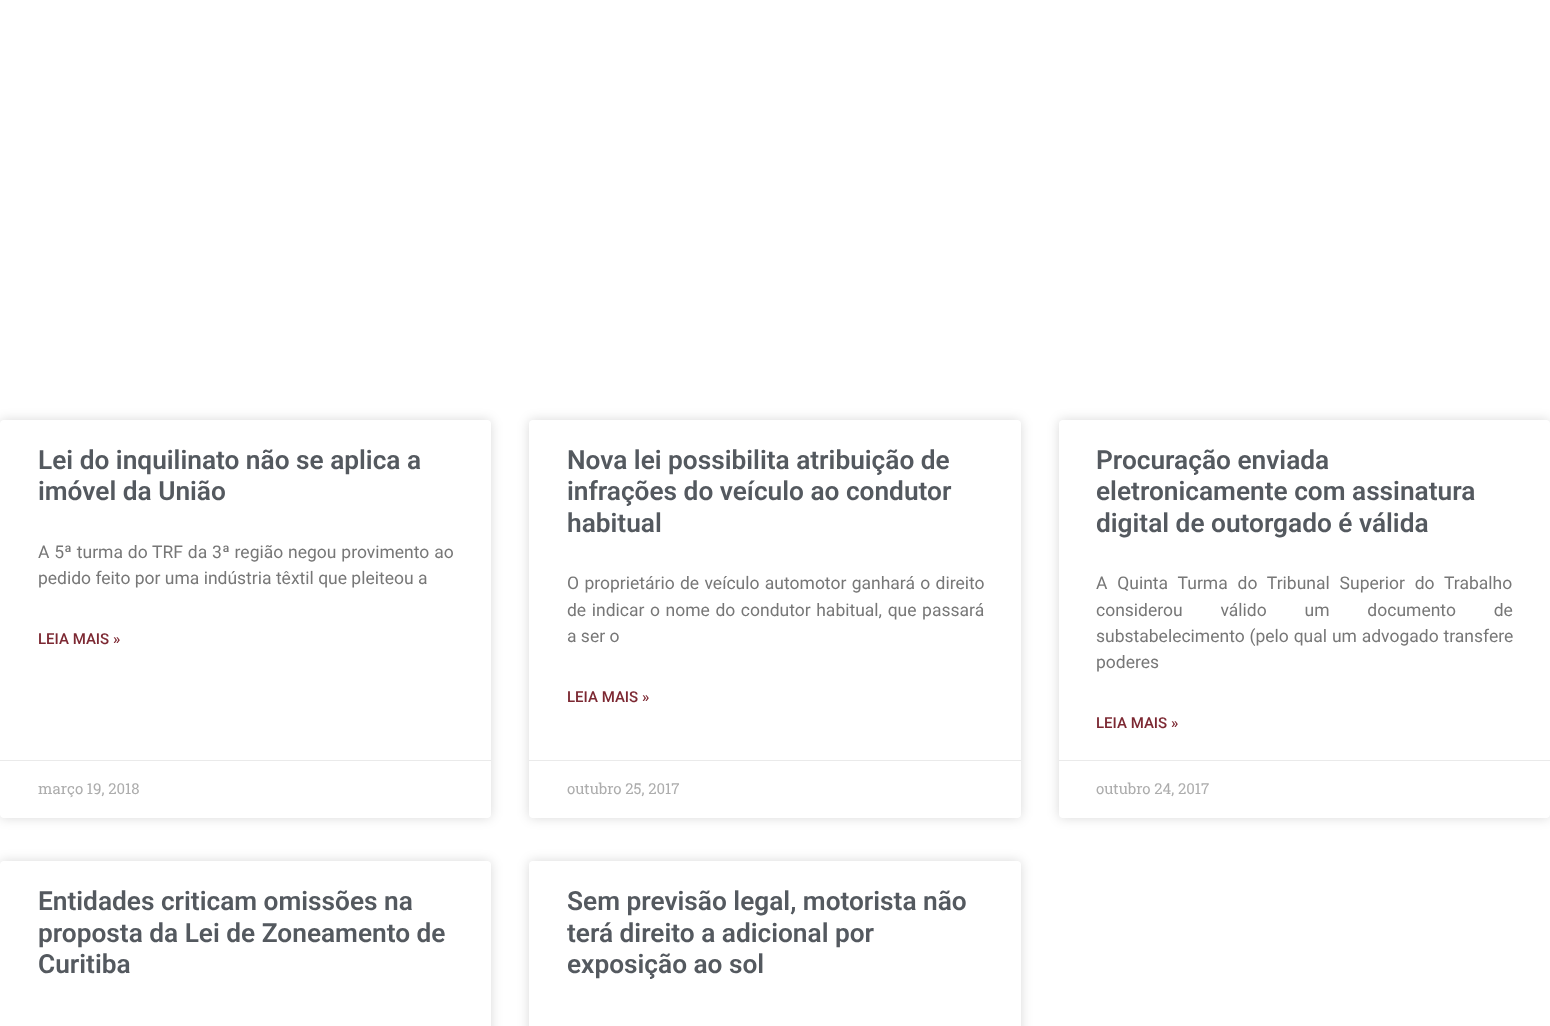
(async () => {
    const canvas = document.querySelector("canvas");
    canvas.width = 1550;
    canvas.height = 1026;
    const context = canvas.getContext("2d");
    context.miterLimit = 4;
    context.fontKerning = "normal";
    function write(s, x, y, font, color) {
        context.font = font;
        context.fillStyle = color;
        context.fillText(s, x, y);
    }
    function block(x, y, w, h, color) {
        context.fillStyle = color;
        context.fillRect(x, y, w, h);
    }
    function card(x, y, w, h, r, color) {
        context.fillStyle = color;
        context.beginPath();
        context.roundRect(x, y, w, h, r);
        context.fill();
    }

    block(0, 0, 1550, 1026, "rgb(255, 255, 255)");
    context.fillStyle = "rgba(0, 0, 0, 0.15)";
    context.filter = "blur(6px)";
    context.beginPath();
    context.roundRect(0, 420, 491, 398, 4);
    context.fill();
    context.filter = "none";
    card(0, 420, 491, 398, 4, "rgb(255, 255, 255)");
    write("Lei do inquilinato não se aplica a", 38, 469, "600 26.25px Roboto", "rgb(84, 89, 95)");
    write("imóvel da União", 38, 500, "600 26.25px Roboto", "rgb(84, 89, 95)");
    context.wordSpacing = "0.5px";
    write("A 5ª turma do TRF da 3ª região negou provimento ao", 38, 558, "17.5px Roboto", "rgb(119, 119, 119)");
    context.wordSpacing = "0px";
    write("pedido feito por uma indústria têxtil que pleiteou a", 38, 584, "17.5px Roboto", "rgb(119, 119, 119)");
    write("LEIA MAIS »", 38, 644, "500 15px Roboto", "rgb(124, 40, 50)");
    block(0, 760, 491, 1, "rgb(234, 234, 234)");
    write("março 19, 2018", 38, 794, "15px Roboto Slab", "rgb(173, 173, 173)");
    context.fillStyle = "rgba(0, 0, 0, 0.15)";
    context.filter = "blur(6px)";
    context.beginPath();
    context.roundRect(529, 420, 492, 398, 4);
    context.fill();
    context.filter = "none";
    card(529, 420, 492, 398, 4, "rgb(255, 255, 255)");
    write("Nova lei possibilita atribuição de", 567, 469, "600 26.25px Roboto", "rgb(84, 89, 95)");
    write("infrações do veículo ao condutor", 567, 500, "600 26.25px Roboto", "rgb(84, 89, 95)");
    write("habitual", 567, 532, "600 26.25px Roboto", "rgb(84, 89, 95)");
    context.wordSpacing = "1px";
    write("O proprietário de veículo automotor ganhará o direito", 567, 589, "17.5px Roboto", "rgb(119, 119, 119)");
    context.wordSpacing = "1.25px";
    write("de indicar o nome do condutor habitual, que passará", 567, 616, "17.5px Roboto", "rgb(119, 119, 119)");
    context.wordSpacing = "0px";
    write("a ser o", 567, 642, "17.5px Roboto", "rgb(119, 119, 119)");
    write("LEIA MAIS »", 567, 702, "500 15px Roboto", "rgb(124, 40, 50)");
    block(529, 760, 492, 1, "rgb(234, 234, 234)");
    write("outubro 25, 2017", 567, 794, "15px Roboto Slab", "rgb(173, 173, 173)");
    context.fillStyle = "rgba(0, 0, 0, 0.15)";
    context.filter = "blur(6px)";
    context.beginPath();
    context.roundRect(1059, 420, 491, 398, 4);
    context.fill();
    context.filter = "none";
    card(1059, 420, 491, 398, 4, "rgb(255, 255, 255)");
    write("Procuração enviada", 1096, 469, "600 26.25px Roboto", "rgb(84, 89, 95)");
    write("eletronicamente com assinatura", 1096, 500, "600 26.25px Roboto", "rgb(84, 89, 95)");
    write("digital de outorgado é válida", 1096, 532, "600 26.25px Roboto", "rgb(84, 89, 95)");
    context.wordSpacing = "5.5px";
    write("A Quinta Turma do Tribunal Superior do Trabalho", 1096, 589, "17.5px Roboto", "rgb(119, 119, 119)");
    context.wordSpacing = "33.5px";
    write("considerou válido um documento de", 1096, 616, "17.5px Roboto", "rgb(119, 119, 119)");
    context.wordSpacing = "0.5px";
    write("substabelecimento (pelo qual um advogado transfere", 1096, 642, "17.5px Roboto", "rgb(119, 119, 119)");
    context.wordSpacing = "0px";
    write("poderes", 1096, 668, "17.5px Roboto", "rgb(119, 119, 119)");
    write("LEIA MAIS »", 1096, 728, "500 15px Roboto", "rgb(124, 40, 50)");
    block(1059, 760, 491, 1, "rgb(234, 234, 234)");
    write("outubro 24, 2017", 1096, 794, "15px Roboto Slab", "rgb(173, 173, 173)");
    context.fillStyle = "rgba(0, 0, 0, 0.15)";
    context.filter = "blur(6px)";
    context.beginPath();
    context.roundRect(0, 861, 491, 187, 4);
    context.fill();
    context.filter = "none";
    card(0, 861, 491, 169, 4, "rgb(255, 255, 255)");
    write("Entidades criticam omissões na", 38, 910, "600 26.25px Roboto", "rgb(84, 89, 95)");
    write("proposta da Lei de Zoneamento de", 38, 942, "600 26.25px Roboto", "rgb(84, 89, 95)");
    write("Curitiba", 38, 973, "600 26.25px Roboto", "rgb(84, 89, 95)");
    context.fillStyle = "rgba(0, 0, 0, 0.15)";
    context.filter = "blur(6px)";
    context.beginPath();
    context.roundRect(529, 861, 492, 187, 4);
    context.fill();
    context.filter = "none";
    card(529, 861, 492, 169, 4, "rgb(255, 255, 255)");
    write("Sem previsão legal, motorista não", 567, 910, "600 26.25px Roboto", "rgb(84, 89, 95)");
    write("terá direito a adicional por", 567, 942, "600 26.25px Roboto", "rgb(84, 89, 95)");
    write("exposição ao sol", 567, 973, "600 26.25px Roboto", "rgb(84, 89, 95)");
})();
